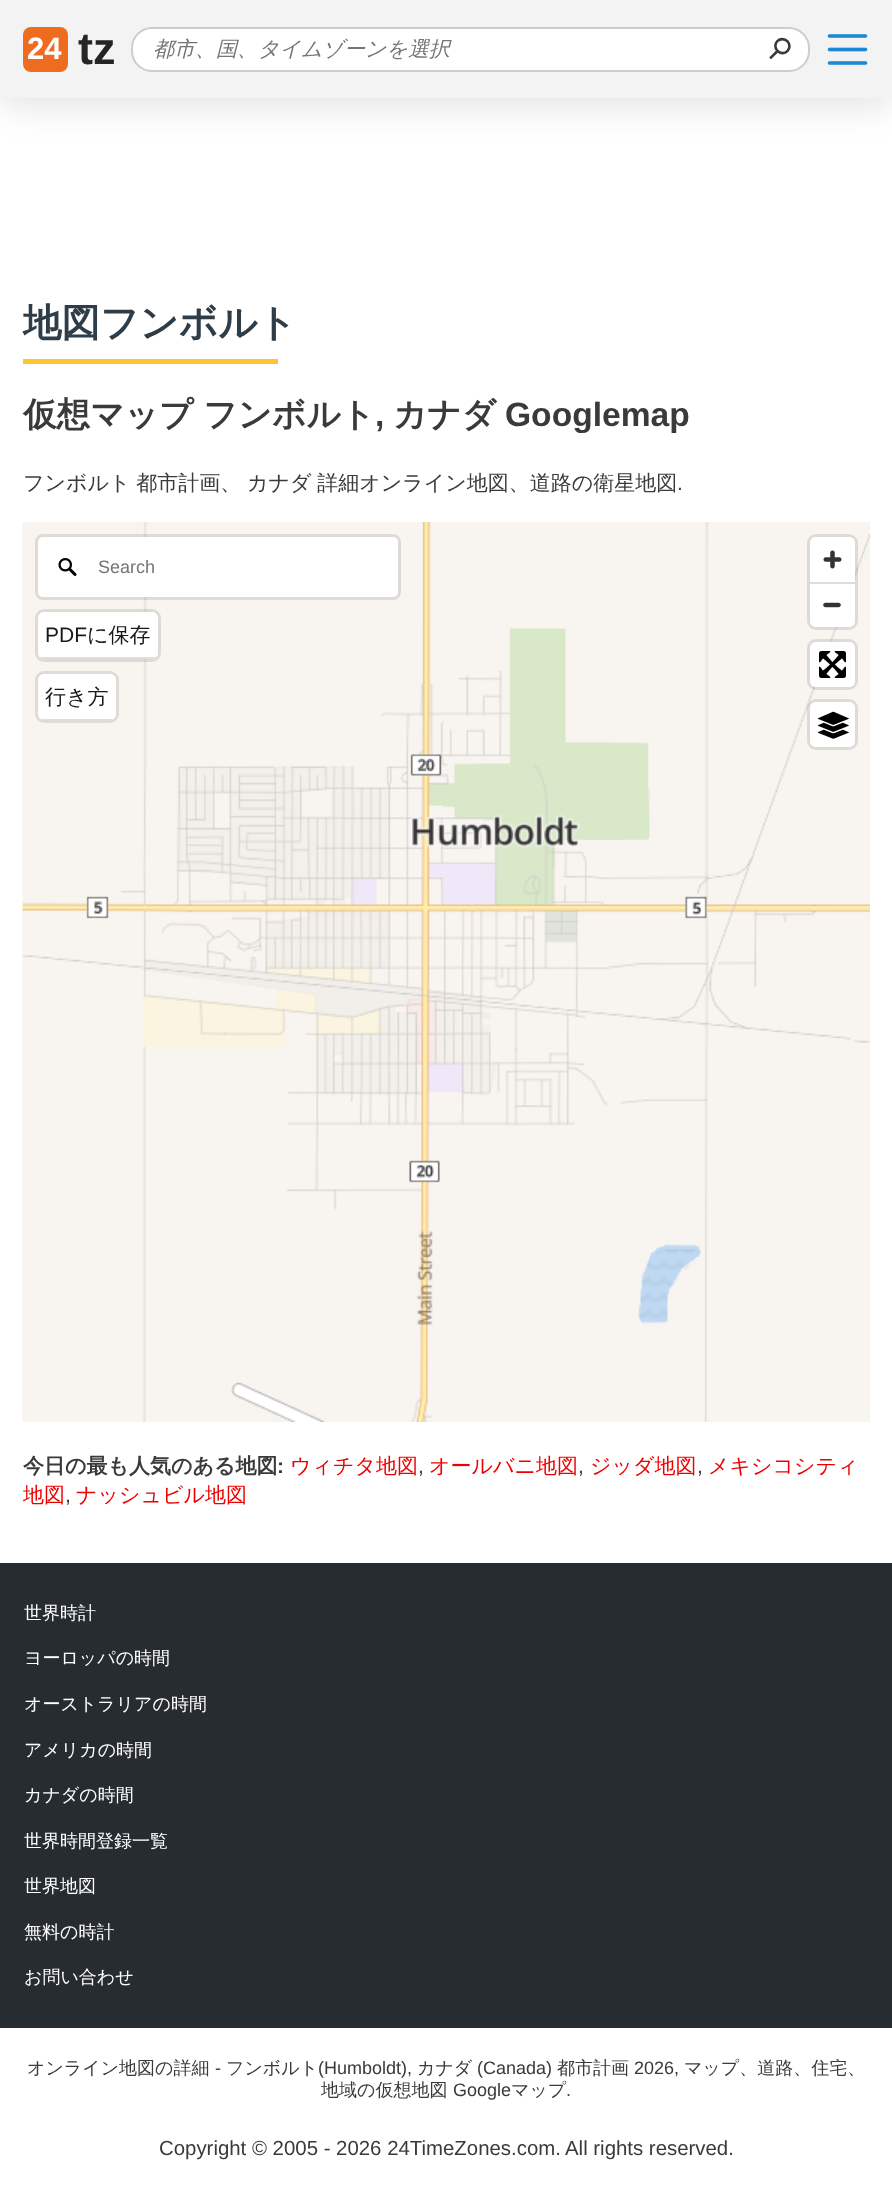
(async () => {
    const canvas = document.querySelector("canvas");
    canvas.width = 892;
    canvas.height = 2209;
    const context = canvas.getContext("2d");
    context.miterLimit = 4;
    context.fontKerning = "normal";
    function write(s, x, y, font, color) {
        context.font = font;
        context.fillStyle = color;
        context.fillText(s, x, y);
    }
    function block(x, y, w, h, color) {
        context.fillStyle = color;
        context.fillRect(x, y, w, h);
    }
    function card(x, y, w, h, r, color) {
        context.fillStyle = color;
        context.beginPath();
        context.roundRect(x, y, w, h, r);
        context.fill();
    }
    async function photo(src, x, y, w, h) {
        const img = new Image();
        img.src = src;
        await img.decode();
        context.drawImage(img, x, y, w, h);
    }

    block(0, 0, 892, 2209, "rgb(255, 255, 255)");
    context.fillStyle = "rgba(0, 0, 0, 0.12)";
    context.filter = "blur(18px)";
    context.beginPath();
    context.rect(0, 6, 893, 98);
    context.fill();
    context.filter = "none";
    block(0, 0, 892, 98, "rgb(243, 243, 243)");
    card(23, 27, 45, 45, 8, "rgb(237, 108, 32)");
    write("24", 27, 59, "bold 31px Liberation Sans", "rgb(255, 255, 255)");
    write("tz", 78, 64, "bold 45px Liberation Sans", "rgb(37, 37, 37)");
    context.fillStyle = "rgb(255, 255, 255)";
    context.beginPath();
    context.roundRect(132, 28, 677, 43, 20);
    context.fill();
    context.strokeStyle = "rgb(205, 205, 205)";
    context.lineWidth = 2;
    context.stroke();
    write("都市、国、タイムゾーンを選択", 153, 56, "italic 500 21px WenQuanYi Zen Hei", "rgb(117, 117, 117)");
    context.font = "30px DejaVu Sans";
    context.fillStyle = "rgb(58, 58, 58)";
    context.save();
    context.translate(765, 48);
    context.rotate(45 * Math.PI / 180);
    context.fillText("⚲", 0, 0);
    context.restore();
    await photo("media/1.png", 827, 34, 41, 31);
    write("地図フンボルト", 23, 336, "bold 38.5px WenQuanYi Zen Hei", "rgb(46, 61, 72)");
    block(23, 359, 255, 5, "rgb(255, 197, 49)");
    write("仮想マップ フンボルト", 23, 426, "bold 33.6px WenQuanYi Zen Hei", "rgb(58, 58, 58)");
    write(",", 375, 426, "bold 33.6px Liberation Sans", "rgb(58, 58, 58)");
    write("カナダ", 393, 426, "bold 33.6px WenQuanYi Zen Hei", "rgb(58, 58, 58)");
    write("Googlemap", 505, 426, "bold 33.6px Liberation Sans", "rgb(58, 58, 58)");
    context.wordSpacing = "-0.5px";
    write("フンボルト 都市計画、 カナダ 詳細オンライン地図、道路の衛星地図", 23, 490, "500 21px WenQuanYi Zen Hei", "rgb(58, 58, 58)");
    context.wordSpacing = "0px";
    write(".", 677, 490, "21px Liberation Sans", "rgb(58, 58, 58)");
    await photo("media/2.png", 22, 522, 848, 900);
    context.beginPath();
    context.roundRect(36.5, 535.5, 363, 63, 6.5);
    context.strokeStyle = "rgba(0, 0, 0, 0.1)";
    context.lineWidth = 3;
    context.stroke();
    card(38, 537, 360, 60, 5, "rgb(255, 255, 255)");
    await photo("media/3.png", 58, 558, 19, 18);
    write("Search", 98, 573, "18px Liberation Sans", "rgb(117, 117, 117)");
    context.beginPath();
    context.roundRect(36.5, 610.5, 123, 50, 7.5);
    context.stroke();
    card(38, 612, 120, 47, 6, "rgb(255, 255, 255)");
    context.save();
    context.beginPath();
    context.roundRect(38, 612, 120, 47, 6);
    context.clip();
    block(38, 657, 120, 2, "rgb(221, 221, 221)");
    context.restore();
    write("PDF", 45, 642, "21px Liberation Sans", "rgb(25, 25, 25)");
    write("に保存", 87, 642, "500 21px WenQuanYi Zen Hei", "rgb(25, 25, 25)");
    context.beginPath();
    context.roundRect(36.5, 672.5, 81, 49, 7.5);
    context.strokeStyle = "rgb(223, 220, 216)";
    context.stroke();
    card(38, 674, 78, 46, 6, "rgb(255, 255, 255)");
    context.save();
    context.beginPath();
    context.roundRect(38, 674, 78, 46, 6);
    context.clip();
    block(38, 719, 78, 1, "rgb(221, 221, 221)");
    context.restore();
    write("行き方", 45, 704, "500 21px WenQuanYi Zen Hei", "rgb(25, 25, 25)");
    context.beginPath();
    context.roundRect(808.5, 535.5, 48, 93, 7.5);
    context.strokeStyle = "rgba(0, 0, 0, 0.1)";
    context.stroke();
    card(810, 537, 45, 90, 6, "rgb(255, 255, 255)");
    await photo("media/4.png", 823, 550, 19, 19);
    await photo("media/5.png", 823, 602, 18, 6);
    block(810, 582, 45, 2, "rgb(221, 221, 221)");
    context.beginPath();
    context.roundRect(808.5, 640.5, 48, 48, 7.5);
    context.stroke();
    card(810, 642, 45, 45, 6, "rgb(255, 255, 255)");
    await photo("media/6.png", 819, 651, 27, 27);
    context.beginPath();
    context.roundRect(808.5, 700.5, 48, 48, 7.5);
    context.stroke();
    card(810, 702, 45, 45, 6, "rgb(255, 255, 255)");
    await photo("media/7.png", 818, 711, 31, 28);
    write("今日の最も人気のある地図", 23, 1473, "bold 21px WenQuanYi Zen Hei", "rgb(58, 58, 58)");
    write(":", 277, 1473, "bold 21px Liberation Sans", "rgb(58, 58, 58)");
    write("ウィチタ地図", 290, 1473, "500 21px WenQuanYi Zen Hei", "rgb(238, 0, 0)");
    write(",", 418, 1473, "21px Liberation Sans", "rgb(58, 58, 58)");
    write("オールバニ地図", 429, 1473, "500 21px WenQuanYi Zen Hei", "rgb(238, 0, 0)");
    write(",", 578, 1473, "21px Liberation Sans", "rgb(58, 58, 58)");
    write("ジッダ地図", 590, 1473, "500 21px WenQuanYi Zen Hei", "rgb(238, 0, 0)");
    write(",", 697, 1473, "21px Liberation Sans", "rgb(58, 58, 58)");
    write("メキシコシティ", 708, 1473, "500 21px WenQuanYi Zen Hei", "rgb(238, 0, 0)");
    write("地図", 23, 1502, "500 21px WenQuanYi Zen Hei", "rgb(238, 0, 0)");
    write(",", 65, 1502, "21px Liberation Sans", "rgb(58, 58, 58)");
    write("ナッシュビル地図", 76, 1502, "500 21px WenQuanYi Zen Hei", "rgb(238, 0, 0)");
    block(0, 1563, 892, 465, "rgb(39, 44, 49)");
    write("世界時計", 24, 1619, "500 18px WenQuanYi Zen Hei", "rgb(255, 255, 255)");
    write("ヨーロッパの時間", 24, 1664, "500 18px WenQuanYi Zen Hei", "rgb(255, 255, 255)");
    write("オーストラリアの時間", 24, 1710, "500 18px WenQuanYi Zen Hei", "rgb(255, 255, 255)");
    write("アメリカの時間", 24, 1756, "500 18px WenQuanYi Zen Hei", "rgb(255, 255, 255)");
    write("カナダの時間", 24, 1801, "500 18px WenQuanYi Zen Hei", "rgb(255, 255, 255)");
    write("世界時間登録一覧", 24, 1847, "500 18px WenQuanYi Zen Hei", "rgb(255, 255, 255)");
    write("世界地図", 24, 1892, "500 18px WenQuanYi Zen Hei", "rgb(255, 255, 255)");
    write("無料の時計", 24, 1938, "500 18px WenQuanYi Zen Hei", "rgb(255, 255, 255)");
    write("お問い合わせ", 24, 1983, "500 18px WenQuanYi Zen Hei", "rgb(255, 255, 255)");
    write("オンライン地図の詳細", 27, 2074, "500 18px WenQuanYi Zen Hei", "rgb(58, 58, 58)");
    write("-", 215, 2074, "18px Liberation Sans", "rgb(58, 58, 58)");
    write("フンボルト", 226, 2074, "500 18px WenQuanYi Zen Hei", "rgb(58, 58, 58)");
    write("(Humboldt),", 318, 2074, "18px Liberation Sans", "rgb(58, 58, 58)");
    write("カナダ", 417, 2074, "500 18px WenQuanYi Zen Hei", "rgb(58, 58, 58)");
    write("(Canada)", 477, 2074, "18px Liberation Sans", "rgb(58, 58, 58)");
    write("都市計画", 557, 2074, "500 18px WenQuanYi Zen Hei", "rgb(58, 58, 58)");
    write("2026,", 634, 2074, "18px Liberation Sans", "rgb(58, 58, 58)");
    write("マップ、道路、住宅、", 684, 2074, "500 18px WenQuanYi Zen Hei", "rgb(58, 58, 58)");
    write("地域の仮想地図", 321, 2096, "500 18px WenQuanYi Zen Hei", "rgb(58, 58, 58)");
    write("Google", 453, 2096, "18px Liberation Sans", "rgb(58, 58, 58)");
    write("マップ", 511, 2096, "500 18px WenQuanYi Zen Hei", "rgb(58, 58, 58)");
    write(".", 566, 2096, "18px Liberation Sans", "rgb(58, 58, 58)");
    write("Copyright © 2005 - 2026 24TimeZones.com.", 159, 2155, "20.4px Liberation Sans", "rgb(58, 58, 58)");
    write("All rights reserved.", 565, 2155, "20.4px Liberation Sans", "rgb(58, 58, 58)");
})();
